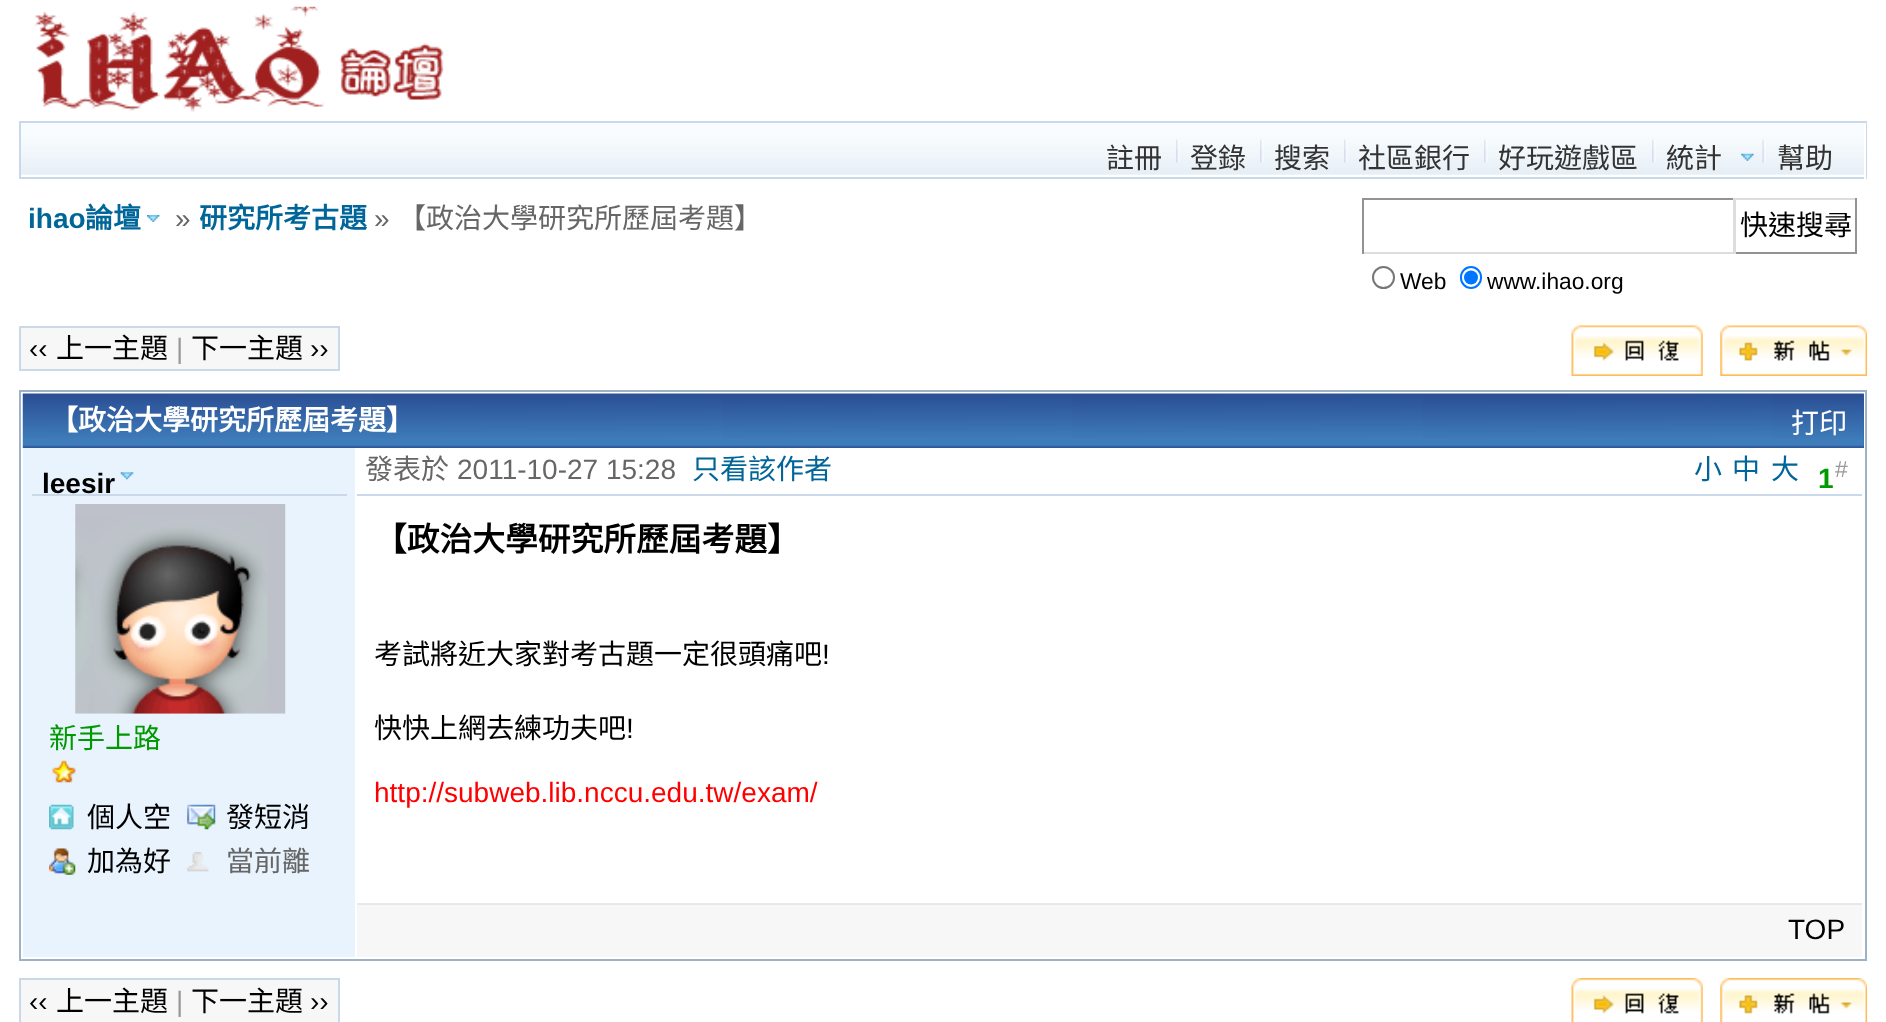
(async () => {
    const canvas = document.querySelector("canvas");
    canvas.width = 1886;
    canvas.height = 1022;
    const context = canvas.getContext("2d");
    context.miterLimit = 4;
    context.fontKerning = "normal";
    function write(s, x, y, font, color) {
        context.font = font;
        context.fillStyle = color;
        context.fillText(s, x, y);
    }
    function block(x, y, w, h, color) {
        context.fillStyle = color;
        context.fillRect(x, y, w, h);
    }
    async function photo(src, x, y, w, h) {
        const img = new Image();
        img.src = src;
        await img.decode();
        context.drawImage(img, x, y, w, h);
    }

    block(0, 0, 1886, 1022, "rgb(255, 255, 255)");
    await photo("media/1.png", 34, 6, 410, 106);
    await photo("media/2.png", 21, 122, 1847, 53);
    context.strokeStyle = "rgb(202, 217, 234)";
    context.lineWidth = 2;
    context.strokeRect(20, 122, 1846, 56);
    block(1864, 123, 2, 64, "rgb(255, 255, 255)");
    write("註冊", 1106, 168, "28px Noto Sans CJK TC", "rgb(51, 51, 51)");
    await photo("media/3.png", 1176, 139, 4, 24);
    write("登錄", 1190, 168, "28px Noto Sans CJK TC", "rgb(51, 51, 51)");
    await photo("media/3.png", 1260, 139, 4, 24);
    write("搜索", 1274, 168, "28px Noto Sans CJK TC", "rgb(51, 51, 51)");
    await photo("media/3.png", 1344, 139, 4, 24);
    write("社區銀行", 1358, 168, "28px Noto Sans CJK TC", "rgb(51, 51, 51)");
    await photo("media/3.png", 1484, 139, 4, 24);
    write("好玩遊戲區", 1498, 168, "28px Noto Sans CJK TC", "rgb(51, 51, 51)");
    await photo("media/4.png", 1741, 153, 13, 8);
    await photo("media/3.png", 1652, 139, 4, 24);
    write("統計", 1666, 168, "28px Noto Sans CJK TC", "rgb(51, 51, 51)");
    await photo("media/5.png", 1762, 139, 4, 24);
    write("幫助", 1777, 168, "28px Noto Sans CJK TC", "rgb(51, 51, 51)");
    write("ihao", 28, 228, "bold 28px Liberation Sans", "rgb(0, 102, 153)");
    write("論壇", 85, 228, "bold 28px Noto Sans CJK TC", "rgb(0, 102, 153)");
    await photo("media/6.png", 147, 215, 13, 7);
    write("»", 175, 228, "28px Liberation Sans", "rgb(102, 102, 102)");
    write("研究所考古題", 199, 228, "bold 28px Noto Sans CJK TC", "rgb(0, 102, 153)");
    write("»", 374, 228, "28px Liberation Sans", "rgb(102, 102, 102)");
    write("【政治大學研究所歷屆考題】", 398, 228, "28px Noto Sans CJK TC", "rgb(102, 102, 102)");
    block(1362, 198, 372, 2, "rgb(147, 147, 147)");
    block(1733, 198, 1, 56, "rgb(221, 221, 221)");
    block(1362, 252, 372, 2, "rgb(221, 221, 221)");
    block(1362, 198, 2, 56, "rgb(147, 147, 147)");
    block(1734, 198, 123, 2, "rgb(221, 221, 221)");
    block(1855, 198, 2, 56, "rgb(147, 147, 147)");
    block(1734, 252, 123, 2, "rgb(147, 147, 147)");
    block(1734, 198, 2, 56, "rgb(221, 221, 221)");
    write("快速搜尋", 1740, 235, "28px Noto Sans CJK TC", "rgb(0, 0, 0)");
    context.beginPath();
    context.arc(1383.5, 277.5, 10.5, 0, Math.PI * 2);
    context.strokeStyle = "rgb(118, 118, 118)";
    context.stroke();
    write("Web", 1400, 289, "22.75px Liberation Sans", "rgb(0, 0, 0)");
    context.beginPath();
    context.roundRect(1461, 267, 20, 21, 10);
    context.strokeStyle = "rgb(0, 117, 255)";
    context.stroke();
    context.fillStyle = "rgb(0, 117, 255)";
    context.beginPath();
    context.arc(1471, 277.5, 7, 0, Math.PI * 2);
    context.fill();
    write("www.ihao.org", 1487, 289, "22.75px Liberation Sans", "rgb(0, 0, 0)");
    context.fillStyle = "rgb(247, 247, 247)";
    context.beginPath();
    context.rect(20, 327, 319, 43);
    context.fill();
    context.strokeStyle = "rgb(202, 217, 234)";
    context.stroke();
    write("‹‹", 29, 358, "28px Liberation Sans", "rgb(0, 0, 0)");
    write("上一主題", 56, 358, "28px Noto Sans CJK TC", "rgb(0, 0, 0)");
    write("|", 176, 358, "28px Liberation Sans", "rgb(153, 153, 153)");
    write("下一主題", 191, 358, "28px Noto Sans CJK TC", "rgb(0, 0, 0)");
    write("››", 310, 358, "28px Liberation Sans", "rgb(0, 0, 0)");
    await photo("media/7.png", 1571, 325, 132, 51);
    await photo("media/8.png", 1720, 325, 148, 51);
    context.strokeStyle = "rgb(157, 179, 197)";
    context.strokeRect(20, 391, 1846, 569);
    block(23, 394, 1841, 54, "rgb(47, 88, 156)");
    await photo("media/9.png", 22, 393, 1842, 55);
    write("【政治大學研究所歷屆考題】", 50, 430, "bold 28px Noto Sans CJK TC", "rgb(255, 255, 255)");
    write("打印", 1791, 433, "28px Noto Sans CJK TC", "rgb(255, 255, 255)");
    block(23, 448, 332, 509, "rgb(232, 243, 253)");
    block(32, 494, 315, 2, "rgb(202, 217, 234)");
    await photo("media/10.png", 120, 472, 14, 8);
    write("leesir", 42, 493, "bold 28px Liberation Sans", "rgb(0, 0, 0)");
    await photo("media/11.png", 75, 504, 211, 210);
    write("新手上路", 49, 748, "28px Noto Sans CJK TC", "rgb(0, 153, 0)");
    await photo("media/12.png", 52, 760, 24, 23);
    await photo("media/13.png", 49, 804, 25, 26);
    write("個人空", 87, 827, "28px Noto Sans CJK TC", "rgb(0, 0, 0)");
    await photo("media/14.png", 187, 804, 29, 26);
    write("發短消", 226, 827, "28px Noto Sans CJK TC", "rgb(0, 0, 0)");
    await photo("media/15.png", 49, 848, 27, 27);
    write("加為好", 87, 871, "28px Noto Sans CJK TC", "rgb(0, 0, 0)");
    await photo("media/16.png", 187, 852, 22, 20);
    write("當前離", 226, 871, "28px Noto Sans CJK TC", "rgb(102, 102, 102)");
    block(357, 494, 1505, 2, "rgb(202, 217, 234)");
    write("發表於", 365, 479, "28px Noto Sans CJK TC", "rgb(102, 102, 102)");
    write("2011-10-27 15:28", 457, 479, "28px Liberation Sans", "rgb(102, 102, 102)");
    write("只看該作者", 692, 479, "28px Noto Sans CJK TC", "rgb(0, 102, 153)");
    write("小", 1694, 479, "28px Noto Sans CJK TC", "rgb(0, 102, 153)");
    write("中", 1732, 479, "28px Noto Sans CJK TC", "rgb(0, 102, 153)");
    write("大", 1771, 479, "28px Noto Sans CJK TC", "rgb(0, 102, 153)");
    write("1", 1818, 488, "bold 28px Liberation Sans", "rgb(0, 153, 0)");
    write("#", 1835, 477, "23px Liberation Sans", "rgb(153, 153, 153)");
    write("【政治大學研究所歷屆考題】", 374, 551, "bold 32.75px Noto Sans CJK TC", "rgb(0, 0, 0)");
    write("考試將近大家對考古題一定很頭痛吧", 374, 664, "28px Noto Sans CJK TC", "rgb(0, 0, 0)");
    write("!", 822, 664, "28px Liberation Sans", "rgb(0, 0, 0)");
    write("快快上網去練功夫吧", 374, 738, "28px Noto Sans CJK TC", "rgb(0, 0, 0)");
    write("!", 626, 738, "28px Liberation Sans", "rgb(0, 0, 0)");
    write("http://subweb.lib.nccu.edu.tw/exam/", 374, 802, "28px Liberation Sans", "rgb(255, 0, 0)");
    block(357, 905, 1505, 52, "rgb(247, 247, 247)");
    block(357, 903, 1505, 2, "rgb(232, 232, 232)");
    write("TOP", 1788, 939, "28px Liberation Sans", "rgb(0, 0, 0)");
    context.fillStyle = "rgb(247, 247, 247)";
    context.beginPath();
    context.rect(20, 979, 319, 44);
    context.fill();
    context.strokeStyle = "rgb(202, 217, 234)";
    context.stroke();
    write("‹‹", 29, 1011, "28px Liberation Sans", "rgb(0, 0, 0)");
    write("上一主題", 56, 1011, "28px Noto Sans CJK TC", "rgb(0, 0, 0)");
    write("|", 176, 1011, "28px Liberation Sans", "rgb(153, 153, 153)");
    write("下一主題", 191, 1011, "28px Noto Sans CJK TC", "rgb(0, 0, 0)");
    write("››", 310, 1011, "28px Liberation Sans", "rgb(0, 0, 0)");
    await photo("media/17.png", 1571, 978, 132, 44);
    await photo("media/18.png", 1720, 978, 148, 44);
})();
